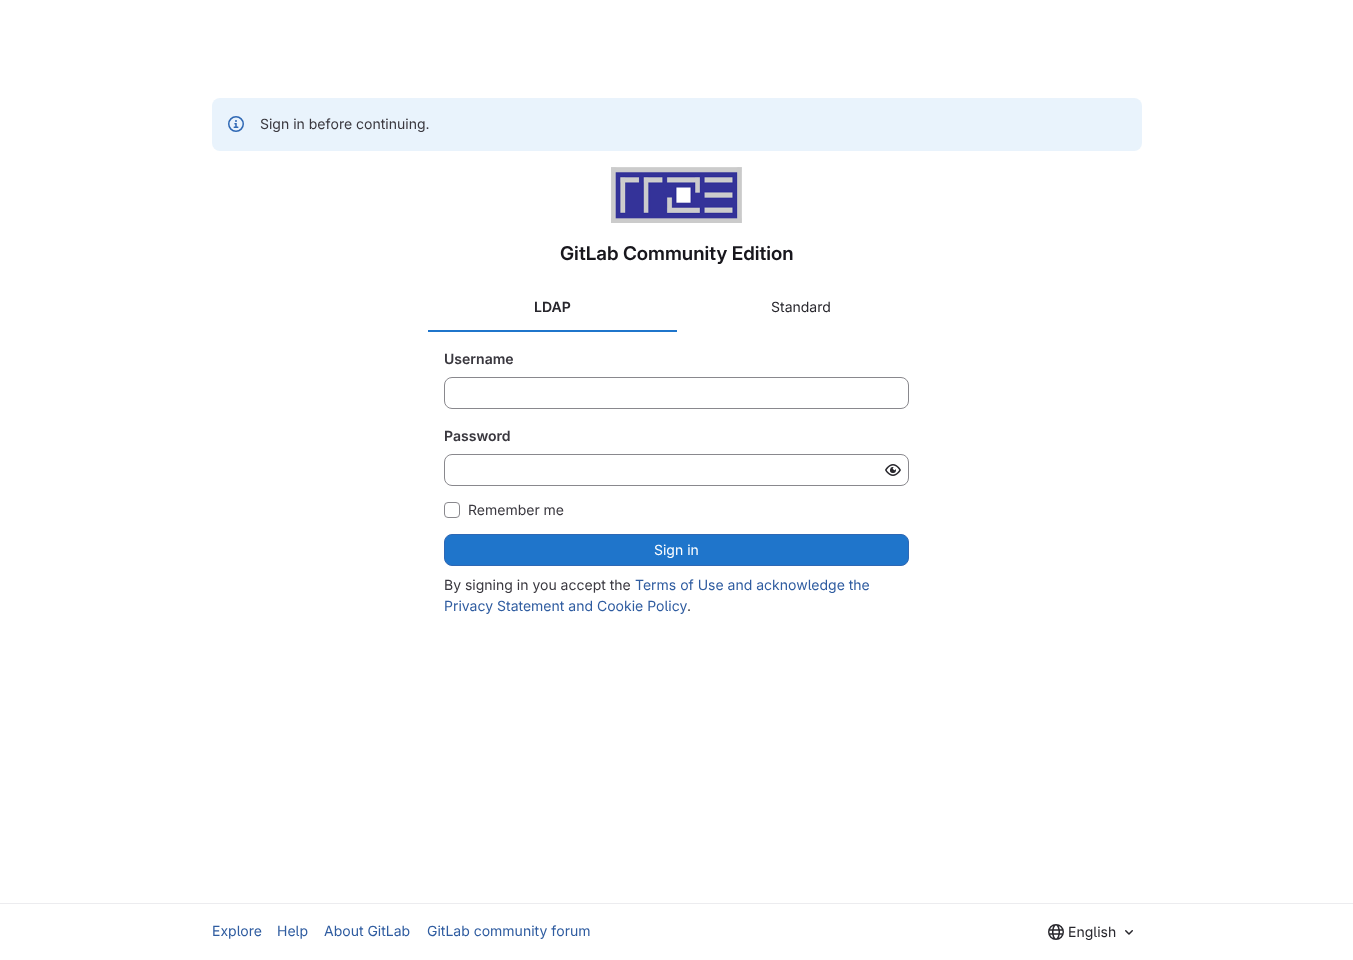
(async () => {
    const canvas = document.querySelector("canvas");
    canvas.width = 1353;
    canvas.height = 960;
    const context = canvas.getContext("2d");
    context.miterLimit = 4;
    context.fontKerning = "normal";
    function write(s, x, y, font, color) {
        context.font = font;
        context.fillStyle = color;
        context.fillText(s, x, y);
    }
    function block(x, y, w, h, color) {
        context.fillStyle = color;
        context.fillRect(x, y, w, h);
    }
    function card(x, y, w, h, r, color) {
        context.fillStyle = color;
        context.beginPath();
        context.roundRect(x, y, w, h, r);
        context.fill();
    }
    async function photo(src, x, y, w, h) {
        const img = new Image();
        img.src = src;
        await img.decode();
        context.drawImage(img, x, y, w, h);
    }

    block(0, 0, 1353, 960, "rgb(255, 255, 255)");
    card(212, 98, 930, 53, 8, "rgb(233, 243, 252)");
    await photo("media/1.png", 228, 116, 16, 16);
    write("Sign in before continuing.", 260, 129, "14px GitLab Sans", "rgb(58, 56, 63)");
    await photo("media/2.png", 611, 167, 131, 56);
    write("GitLab Community Edition", 560, 260, "600 19px 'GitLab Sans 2'", "rgb(24, 23, 29)");
    write("LDAP", 534, 312, "600 14px GitLab Sans", "rgb(40, 39, 45)");
    block(428, 330, 249, 2, "rgb(31, 117, 203)");
    write("Standard", 771, 312, "14px GitLab Sans", "rgb(40, 39, 45)");
    write("Username", 444, 364, "600 14px GitLab Sans", "rgb(58, 56, 63)");
    context.beginPath();
    context.roundRect(444.5, 377.5, 464, 31, 7.5);
    context.strokeStyle = "rgb(137, 136, 141)";
    context.stroke();
    write("Password", 444, 441, "600 14px GitLab Sans", "rgb(58, 56, 63)");
    context.beginPath();
    context.roundRect(444.5, 454.5, 464, 31, 7.5);
    context.stroke();
    await photo("media/3.png", 885, 464, 16, 12);
    context.beginPath();
    context.roundRect(444.5, 502.5, 15, 15, 3.5);
    context.stroke();
    write("Remember me", 468, 515, "14px GitLab Sans", "rgb(58, 56, 63)");
    context.fillStyle = "rgb(31, 117, 203)";
    context.beginPath();
    context.roundRect(444.5, 534.5, 464, 31, 7.5);
    context.fill();
    context.strokeStyle = "rgb(47, 104, 180)";
    context.stroke();
    write("Sign in", 654, 555, "14px GitLab Sans", "rgb(255, 255, 255)");
    write("By signing in you accept the", 444, 590, "14px GitLab Sans", "rgb(58, 56, 63)");
    write("Terms of Use and acknowledge the", 635, 590, "14px GitLab Sans", "rgb(47, 92, 160)");
    write("Privacy Statement and Cookie Policy", 444, 611, "14px GitLab Sans", "rgb(47, 92, 160)");
    write(".", 687, 611, "14px GitLab Sans", "rgb(58, 56, 63)");
    block(0, 903, 1353, 1, "rgb(236, 236, 239)");
    write("Explore", 212, 936, "14px GitLab Sans", "rgb(47, 92, 160)");
    write("Help", 277, 936, "14px GitLab Sans", "rgb(47, 92, 160)");
    write("About GitLab", 324, 936, "14px GitLab Sans", "rgb(47, 92, 160)");
    write("GitLab community forum", 427, 936, "14px GitLab Sans", "rgb(47, 92, 160)");
    await photo("media/4.png", 1048, 924, 16, 16);
    write("English", 1068, 937, "14px GitLab Sans", "rgb(40, 39, 45)");
    await photo("media/5.png", 1125, 930, 8, 5);
})();
